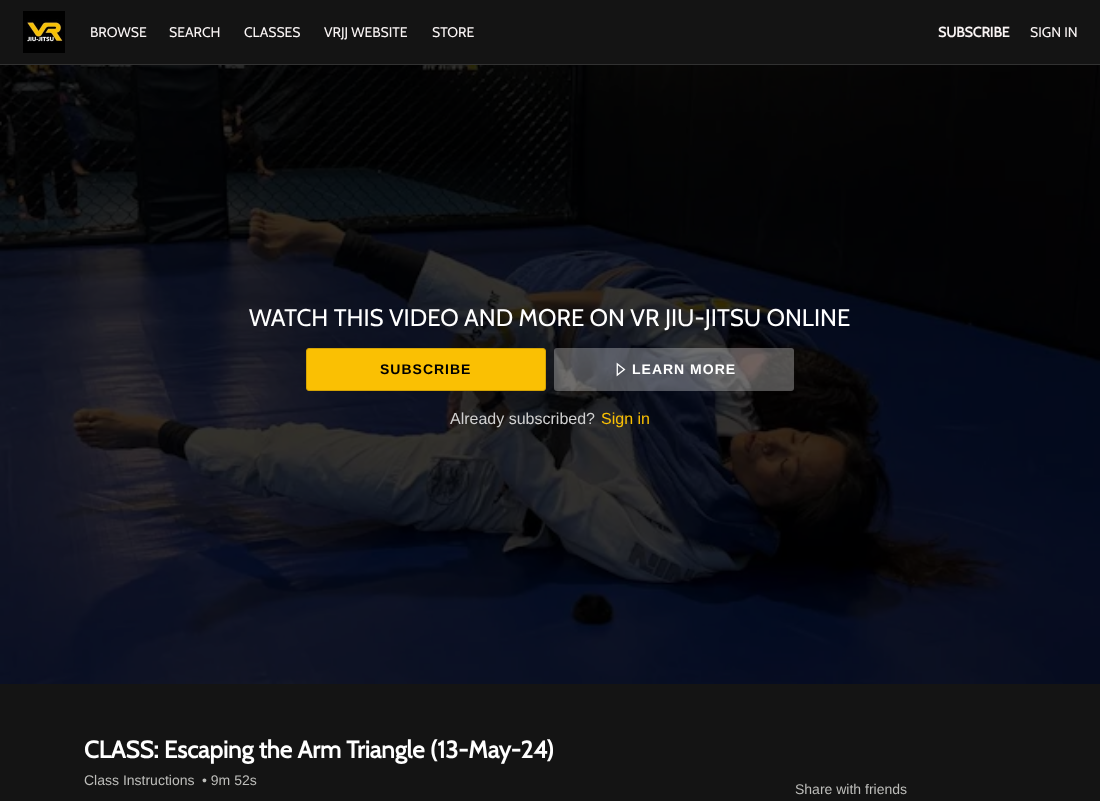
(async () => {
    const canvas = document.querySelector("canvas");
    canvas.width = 1100;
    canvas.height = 801;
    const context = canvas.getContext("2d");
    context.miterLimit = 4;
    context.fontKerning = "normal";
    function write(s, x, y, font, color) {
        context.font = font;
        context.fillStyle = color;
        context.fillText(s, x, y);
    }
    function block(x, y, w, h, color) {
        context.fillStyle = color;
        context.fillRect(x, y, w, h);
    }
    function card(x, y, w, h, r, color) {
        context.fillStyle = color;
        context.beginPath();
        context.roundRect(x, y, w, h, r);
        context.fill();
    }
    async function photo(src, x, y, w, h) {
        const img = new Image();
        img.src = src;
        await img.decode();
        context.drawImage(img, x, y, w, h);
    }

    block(0, 0, 1100, 801, "rgb(20, 20, 20)");
    block(0, 64, 1100, 1, "rgb(50, 50, 50)");
    await photo("media/1.png", 23, 11, 42, 42);
    write("BROWSE", 90, 37, "14px Cabin", "rgb(250, 245, 245)");
    write("SEARCH", 169, 37, "14px Cabin", "rgb(250, 245, 245)");
    write("CLASSES", 244, 37, "14px Cabin", "rgb(250, 245, 245)");
    write("VRJJ WEBSITE", 324, 37, "14px Cabin", "rgb(250, 245, 245)");
    write("STORE", 432, 37, "14px Cabin", "rgb(250, 245, 245)");
    write("SUBSCRIBE", 938, 37, "bold 14px Cabin", "rgb(250, 245, 245)");
    write("SIGN IN", 1030, 37, "14px Cabin", "rgb(250, 245, 245)");
    await photo("media/2.png", 0, 65, 1100, 619);
    write("WATCH THIS VIDEO AND MORE ON VR JIU-JITSU ONLINE", 249, 326, "24px Cabin", "rgb(255, 255, 255)");
    context.fillStyle = "rgb(250, 192, 3)";
    context.beginPath();
    context.roundRect(306.5, 348.5, 239, 42, 2.5);
    context.fill();
    context.strokeStyle = "rgb(213, 163, 3)";
    context.stroke();
    context.letterSpacing = "1px";
    write("SUBSCRIBE", 380, 374, "bold 14px Liberation Sans", "rgb(0, 0, 0)");
    card(554, 348, 240, 43, 3, "rgba(255, 255, 255, 0.3)");
    await photo("media/3.png", 616, 362, 10, 15);
    write("LEARN MORE", 632, 374, "bold 14px Liberation Sans", "rgb(255, 255, 255)");
    context.letterSpacing = "0px";
    write("Already subscribed?", 450, 424, "16px Liberation Sans", "rgb(209, 209, 209)");
    write("Sign in", 601, 424, "16px Liberation Sans", "rgb(250, 192, 3)");
    write("CLASS: Escaping the Arm Triangle (13-May-24)", 84, 758, "bold 24px Cabin", "rgb(255, 255, 255)");
    write("Class Instructions", 84, 785, "14px Liberation Sans", "rgb(190, 190, 187)");
    write("• 9m 52s", 202, 785, "14px Liberation Sans", "rgb(190, 190, 187)");
    write("Share with friends", 795, 794, "14px Liberation Sans", "rgb(190, 190, 187)");
})();
